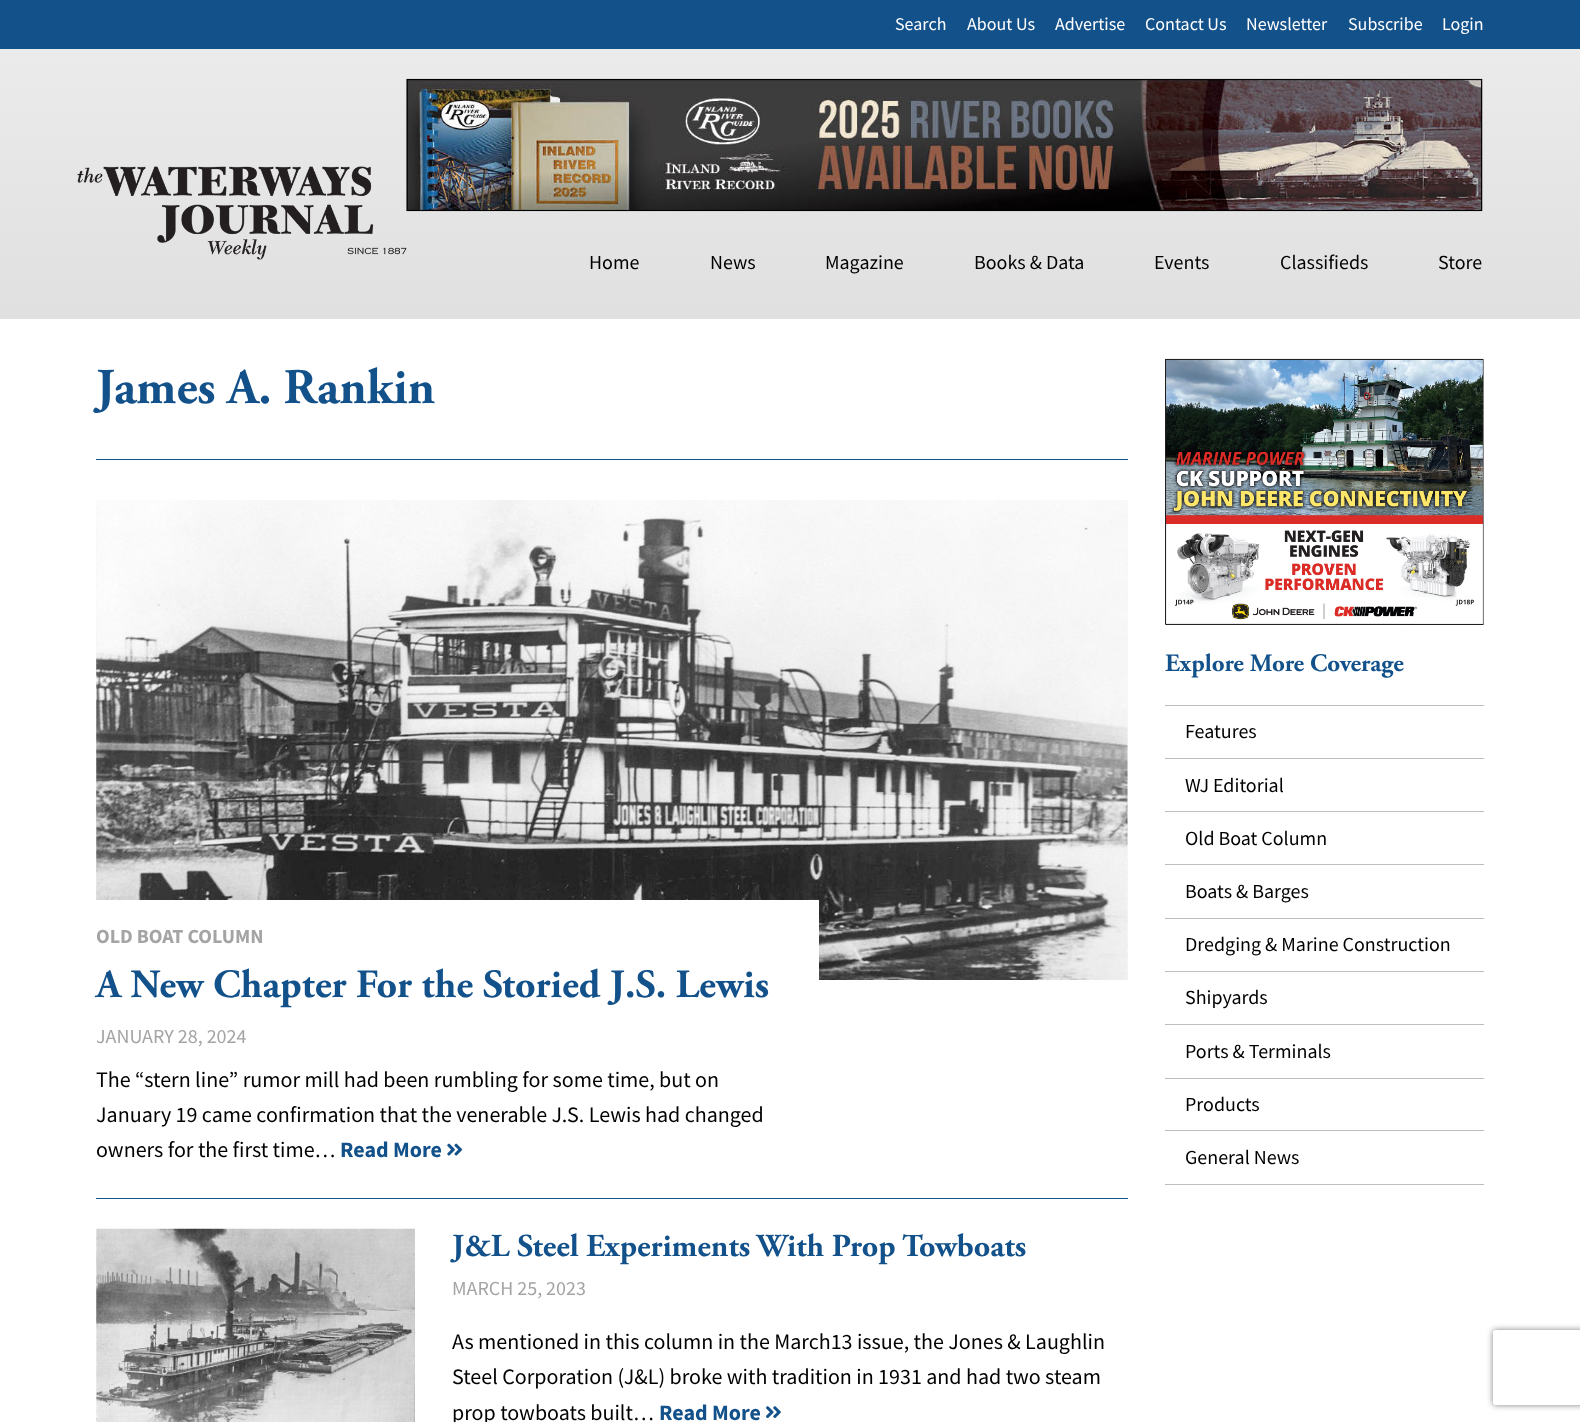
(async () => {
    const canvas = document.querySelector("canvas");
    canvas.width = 1580;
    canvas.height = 1422;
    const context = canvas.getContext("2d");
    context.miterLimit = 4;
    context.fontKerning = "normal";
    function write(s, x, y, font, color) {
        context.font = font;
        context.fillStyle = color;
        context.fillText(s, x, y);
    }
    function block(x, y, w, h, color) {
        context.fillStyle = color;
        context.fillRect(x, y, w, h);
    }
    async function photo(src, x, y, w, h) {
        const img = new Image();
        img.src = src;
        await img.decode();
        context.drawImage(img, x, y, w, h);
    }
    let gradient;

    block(0, 0, 1580, 1422, "rgb(255, 255, 255)");
    block(0, 0, 1580, 49, "rgb(19, 81, 139)");
    write("Search", 895, 30, "18px Source Sans Pro", "rgb(255, 255, 255)");
    write("About Us", 967, 30, "18px Source Sans Pro", "rgb(255, 255, 255)");
    write("Advertise", 1055, 30, "18px Source Sans Pro", "rgb(255, 255, 255)");
    write("Contact Us", 1145, 30, "18px Source Sans Pro", "rgb(255, 255, 255)");
    write("Newsletter", 1246, 30, "18px Source Sans Pro", "rgb(255, 255, 255)");
    write("Subscribe", 1348, 30, "18px Source Sans Pro", "rgb(255, 255, 255)");
    write("Login", 1442, 30, "18px Source Sans Pro", "rgb(255, 255, 255)");
    gradient = context.createLinearGradient(790, 49, 790, 319);
    gradient.addColorStop(0, "rgb(235, 235, 235)");
    gradient.addColorStop(1, "rgb(224, 224, 224)");
    context.fillStyle = gradient;
    context.fillRect(0, 49, 1580, 270);
    await photo("media/1.png", 77, 166, 330, 94);
    await photo("media/2.png", 406, 78, 1077, 134);
    write("Home", 589, 269, "20px Source Sans Pro", "rgb(0, 0, 0)");
    write("News", 710, 269, "20px Source Sans Pro", "rgb(0, 0, 0)");
    write("Magazine", 825, 269, "20px Source Sans Pro", "rgb(0, 0, 0)");
    write("Books & Data", 974, 269, "20px Source Sans Pro", "rgb(0, 0, 0)");
    write("Events", 1154, 269, "20px Source Sans Pro", "rgb(0, 0, 0)");
    write("Classifieds", 1280, 269, "20px Source Sans Pro", "rgb(0, 0, 0)");
    write("Store", 1438, 269, "20px Source Sans Pro", "rgb(0, 0, 0)");
    block(96, 459, 1032, 1, "rgb(19, 81, 139)");
    write("James A. Rankin", 96, 403, "bold 50px Adobe Garamond", "rgb(19, 81, 139)");
    block(96, 1198, 1032, 1, "rgb(19, 81, 139)");
    block(96, 500, 1032, 480, "rgb(246, 246, 246)");
    await photo("media/3.png", 96, 500, 1032, 480);
    block(96, 900, 723, 80, "rgb(255, 255, 255)");
    write("OLD BOAT COLUMN", 96, 943, "bold 20px Source Sans Pro", "rgb(164, 164, 164)");
    write("A New Chapter For the Storied J.S. Lewis", 96, 997, "bold 40px Adobe Garamond", "rgb(19, 81, 139)");
    write("JANUARY 28, 2024", 96, 1043, "20px Source Sans Pro", "rgb(164, 164, 164)");
    write("The “stern line” rumor mill had been rumbling for some time, but on", 96, 1087, "22px Source Sans Pro", "rgb(0, 0, 0)");
    write("January 19 came confirmation that the venerable J.S. Lewis had changed", 96, 1122, "22px Source Sans Pro", "rgb(0, 0, 0)");
    write("owners for the first time…", 96, 1157, "22px Source Sans Pro", "rgb(0, 0, 0)");
    write("Read More", 340, 1157, "bold 22px Source Sans Pro", "rgb(19, 81, 139)");
    await photo("media/4.png", 447, 1143, 16, 13);
    await photo("media/5.png", 96, 1228, 319, 194);
    write("J&L Steel Experiments With Prop Towboats", 452, 1256, "bold 32px Adobe Garamond", "rgb(19, 81, 139)");
    write("MARCH 25, 2023", 452, 1295, "20px Source Sans Pro", "rgb(164, 164, 164)");
    write("As mentioned in this column in the March13 issue, the Jones & Laughlin", 452, 1349, "22px Source Sans Pro", "rgb(0, 0, 0)");
    write("Steel Corporation (J&L) broke with tradition in 1931 and had two steam", 452, 1384, "22px Source Sans Pro", "rgb(0, 0, 0)");
    write("prop towboats built…", 452, 1420, "22px Source Sans Pro", "rgb(0, 0, 0)");
    write("Read More", 659, 1420, "bold 22px Source Sans Pro", "rgb(19, 81, 139)");
    await photo("media/6.png", 766, 1406, 15, 13);
    await photo("media/7.png", 1165, 358, 319, 267);
    write("Explore More Coverage", 1165, 671, "bold 25px Adobe Garamond", "rgb(19, 81, 139)");
    block(1165, 705, 319, 1, "rgb(189, 189, 189)");
    block(1165, 758, 319, 1, "rgb(189, 189, 189)");
    write("Features", 1185, 738, "20px Source Sans Pro", "rgb(0, 0, 0)");
    block(1165, 811, 319, 1, "rgb(189, 189, 189)");
    write("WJ Editorial", 1185, 792, "20px Source Sans Pro", "rgb(0, 0, 0)");
    block(1165, 864, 319, 1, "rgb(189, 189, 189)");
    write("Old Boat Column", 1185, 845, "20px Source Sans Pro", "rgb(0, 0, 0)");
    block(1165, 918, 319, 1, "rgb(189, 189, 189)");
    write("Boats & Barges", 1185, 898, "20px Source Sans Pro", "rgb(0, 0, 0)");
    block(1165, 971, 319, 1, "rgb(189, 189, 189)");
    write("Dredging & Marine Construction", 1185, 951, "20px Source Sans Pro", "rgb(0, 0, 0)");
    block(1165, 1024, 319, 1, "rgb(189, 189, 189)");
    write("Shipyards", 1185, 1004, "20px Source Sans Pro", "rgb(0, 0, 0)");
    block(1165, 1078, 319, 1, "rgb(189, 189, 189)");
    write("Ports & Terminals", 1185, 1058, "20px Source Sans Pro", "rgb(0, 0, 0)");
    block(1165, 1130, 319, 1, "rgb(189, 189, 189)");
    write("Products", 1185, 1111, "20px Source Sans Pro", "rgb(0, 0, 0)");
    block(1165, 1184, 319, 1, "rgb(189, 189, 189)");
    write("General News", 1185, 1164, "20px Source Sans Pro", "rgb(0, 0, 0)");
    context.save();
    context.beginPath();
    context.moveTo(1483, 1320);
    context.lineTo(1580, 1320);
    context.lineTo(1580, 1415);
    context.lineTo(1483, 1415);
    context.closePath();
    context.moveTo(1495.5, 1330);
    context.lineTo(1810.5, 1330);
    context.bezierCurveTo(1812, 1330, 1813, 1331, 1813, 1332.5);
    context.lineTo(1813, 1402.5);
    context.bezierCurveTo(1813, 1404, 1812, 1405, 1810.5, 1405);
    context.lineTo(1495.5, 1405);
    context.bezierCurveTo(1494, 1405, 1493, 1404, 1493, 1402.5);
    context.lineTo(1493, 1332.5);
    context.bezierCurveTo(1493, 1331, 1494, 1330, 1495.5, 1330);
    context.closePath();
    context.clip("evenodd");
    context.fillStyle = "rgb(128, 128, 128)";
    context.filter = "blur(3px)";
    context.beginPath();
    context.roundRect(1493, 1330, 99, 75, 2.5);
    context.fill();
    context.filter = "none";
    context.restore();
})();
